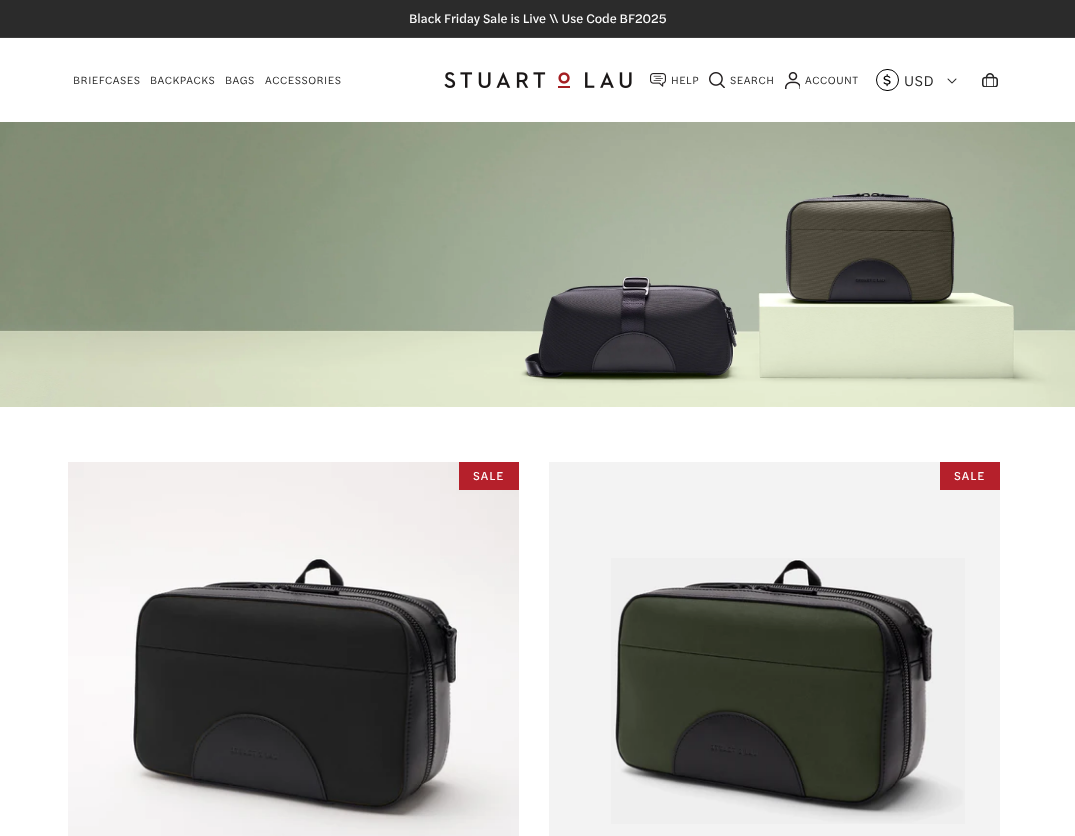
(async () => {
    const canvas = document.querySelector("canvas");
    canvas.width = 1075;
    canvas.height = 836;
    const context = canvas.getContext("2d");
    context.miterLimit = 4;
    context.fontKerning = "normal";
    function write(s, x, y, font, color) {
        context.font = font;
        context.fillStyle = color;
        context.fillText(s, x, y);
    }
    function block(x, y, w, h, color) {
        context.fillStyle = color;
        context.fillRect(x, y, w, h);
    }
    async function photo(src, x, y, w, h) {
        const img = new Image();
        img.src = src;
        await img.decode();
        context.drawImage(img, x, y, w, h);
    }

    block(0, 0, 1075, 836, "rgb(255, 255, 255)");
    block(0, 0, 1075, 37, "rgb(43, 43, 43)");
    block(0, 37, 1075, 1, "rgb(60, 60, 60)");
    write("Black Friday Sale is Live \\\\ Use Code BF2025", 409, 23, "13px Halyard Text", "rgb(255, 255, 255)");
    context.letterSpacing = "0.5px";
    write("BRIEFCASES", 73, 84, "11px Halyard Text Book", "rgb(38, 38, 38)");
    write("BACKPACKS", 150, 84, "11px Halyard Text Book", "rgb(38, 38, 38)");
    write("BAGS", 225, 84, "11px Halyard Text Book", "rgb(38, 38, 38)");
    write("ACCESSORIES", 265, 84, "11px Halyard Text Book", "rgb(38, 38, 38)");
    await photo("media/1.png", 444, 72, 188, 16);
    await photo("media/2.png", 650, 73, 16, 14);
    write("HELP", 671, 84, "11px Halyard Text Book", "rgb(38, 38, 38)");
    await photo("media/3.png", 709, 72, 16, 16);
    write("SEARCH", 730, 84, "11px Halyard Text Book", "rgb(38, 38, 38)");
    await photo("media/4.png", 785, 72, 15, 17);
    write("ACCOUNT", 805, 84, "11px Halyard Text Book", "rgb(38, 38, 38)");
    context.beginPath();
    context.roundRect(876.5, 69.5, 22, 21, 10.5);
    context.strokeStyle = "rgb(0, 0, 0)";
    context.stroke();
    await photo("media/5.png", 883, 74, 8, 13);
    write("USD", 904, 86, "15px Halyard Text Book", "rgb(38, 38, 38)");
    await photo("media/6.png", 947, 78, 10, 6);
    await photo("media/7.png", 982, 73, 16, 14);
    await photo("media/8.png", 0, 122, 1075, 285);
    await photo("media/9.png", 68, 462, 451, 374);
    block(459, 462, 60, 28, "rgb(181, 32, 43)");
    context.letterSpacing = "1px";
    write("SALE", 473, 480, "12px Halyard Text", "rgb(255, 255, 255)");
    block(549, 462, 451, 374, "rgb(243, 243, 243)");
    block(940, 462, 60, 28, "rgb(181, 32, 43)");
    write("SALE", 954, 480, "12px Halyard Text", "rgb(255, 255, 255)");
    await photo("media/10.png", 611, 558, 354, 266);
})();
